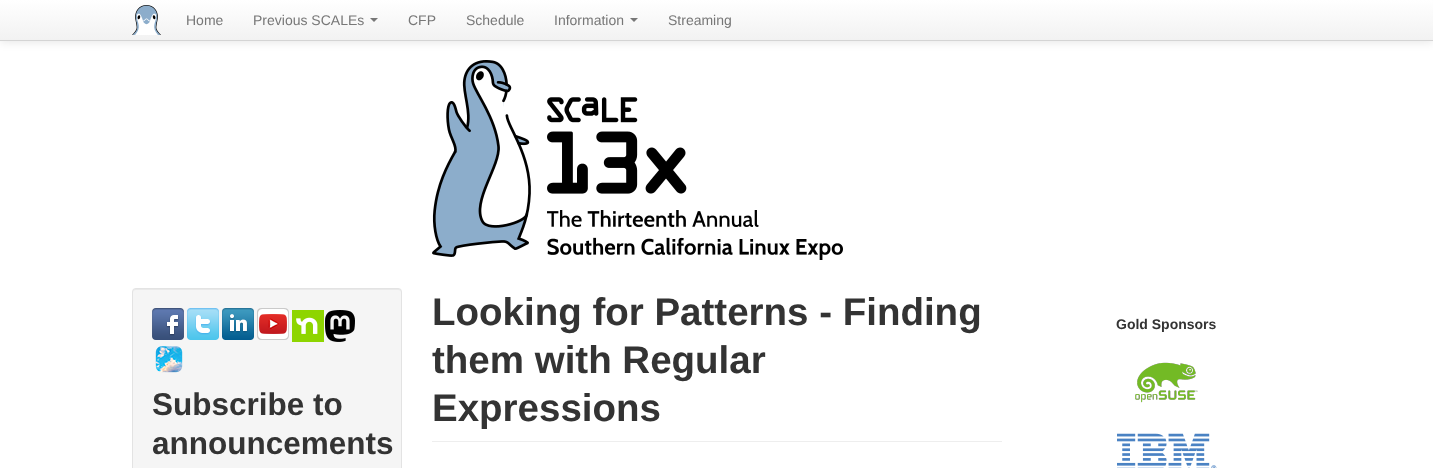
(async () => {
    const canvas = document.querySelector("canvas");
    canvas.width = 1433;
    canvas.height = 468;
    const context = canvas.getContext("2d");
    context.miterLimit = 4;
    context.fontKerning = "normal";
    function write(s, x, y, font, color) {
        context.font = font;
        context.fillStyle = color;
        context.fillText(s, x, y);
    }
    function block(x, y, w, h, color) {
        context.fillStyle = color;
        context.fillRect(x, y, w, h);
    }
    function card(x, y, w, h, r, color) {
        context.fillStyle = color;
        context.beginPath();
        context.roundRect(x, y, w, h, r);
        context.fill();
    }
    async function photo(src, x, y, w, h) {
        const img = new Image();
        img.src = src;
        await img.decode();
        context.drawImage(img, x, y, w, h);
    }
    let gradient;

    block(0, 0, 1433, 468, "rgb(255, 255, 255)");
    context.fillStyle = "rgba(0, 0, 0, 0.1)";
    context.filter = "blur(5px)";
    context.beginPath();
    context.rect(0, 1, 1433, 41);
    context.fill();
    context.filter = "none";
    gradient = context.createLinearGradient(717, 0, 717, 40);
    gradient.addColorStop(0, "rgb(255, 255, 255)");
    gradient.addColorStop(1, "rgb(242, 242, 242)");
    context.fillStyle = gradient;
    context.fillRect(0, 0, 1433, 40);
    block(0, 40, 1433, 1, "rgb(212, 212, 212)");
    await photo("media/1.png", 132, 5, 29, 30);
    write("Home", 186, 25, "14px Liberation Sans", "rgb(119, 119, 119)");
    write("Previous SCALEs", 253, 25, "14px Liberation Sans", "rgb(119, 119, 119)");
    context.beginPath();
    context.moveTo(370, 18);
    context.lineTo(378, 18);
    context.lineTo(374, 22);
    context.closePath();
    context.fill();
    write("CFP", 408, 25, "14px Liberation Sans", "rgb(119, 119, 119)");
    write("Schedule", 466, 25, "14px Liberation Sans", "rgb(119, 119, 119)");
    write("Information", 554, 25, "14px Liberation Sans", "rgb(119, 119, 119)");
    context.beginPath();
    context.moveTo(630, 18);
    context.lineTo(638, 18);
    context.lineTo(634, 22);
    context.closePath();
    context.fill();
    write("Streaming", 668, 25, "14px Liberation Sans", "rgb(119, 119, 119)");
    await photo("media/2.png", 432, 60, 411, 200);
    block(432, 441, 570, 1, "rgb(238, 238, 238)");
    write("Looking for Patterns - Finding", 432, 325, "bold 38.5px Liberation Sans", "rgb(51, 51, 51)");
    write("them with Regular", 432, 373, "bold 38.5px Liberation Sans", "rgb(51, 51, 51)");
    write("Expressions", 432, 421, "bold 38.5px Liberation Sans", "rgb(51, 51, 51)");
    write("Gold Sponsors", 1116, 329, "bold 14px Liberation Sans", "rgb(51, 51, 51)");
    await photo("media/3.png", 1135, 362, 63, 41);
    await photo("media/4.png", 1117, 433, 100, 35);
    card(132, 288, 270, 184, 4, "rgb(245, 245, 245)");
    context.fillStyle = "rgb(233, 233, 233)";
    context.beginPath();
    context.moveTo(136, 290);
    context.lineTo(398, 290);
    context.bezierCurveTo(400, 290, 401, 291, 401, 293);
    context.bezierCurveTo(401, 291, 400, 289, 398, 289);
    context.lineTo(136, 289);
    context.bezierCurveTo(134, 289, 133, 291, 133, 293);
    context.bezierCurveTo(133, 291, 134, 290, 136, 290);
    context.closePath();
    context.fill();
    context.beginPath();
    context.roundRect(132.5, 288.5, 269, 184, 3.5);
    context.strokeStyle = "rgb(227, 227, 227)";
    context.stroke();
    await photo("media/5.png", 152, 308, 32, 32);
    await photo("media/6.png", 187, 308, 32, 32);
    await photo("media/7.png", 222, 308, 32, 32);
    await photo("media/8.png", 257, 308, 32, 32);
    await photo("media/9.png", 292, 310, 32, 32);
    await photo("media/10.png", 325, 310, 30, 32);
    await photo("media/11.png", 155, 346, 28, 27);
    write("Subscribe to", 152, 415, "bold 31.5px Liberation Sans", "rgb(51, 51, 51)");
    write("announcements", 152, 454, "bold 31.5px Liberation Sans", "rgb(51, 51, 51)");
})();
